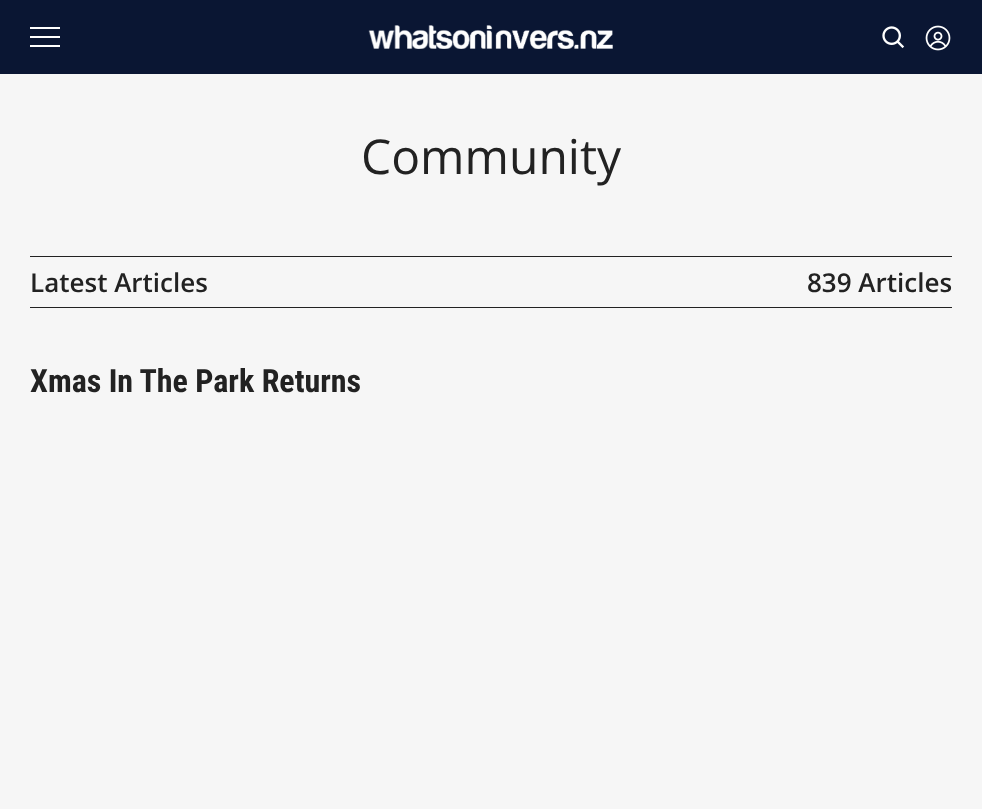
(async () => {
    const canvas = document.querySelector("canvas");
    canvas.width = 982;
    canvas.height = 809;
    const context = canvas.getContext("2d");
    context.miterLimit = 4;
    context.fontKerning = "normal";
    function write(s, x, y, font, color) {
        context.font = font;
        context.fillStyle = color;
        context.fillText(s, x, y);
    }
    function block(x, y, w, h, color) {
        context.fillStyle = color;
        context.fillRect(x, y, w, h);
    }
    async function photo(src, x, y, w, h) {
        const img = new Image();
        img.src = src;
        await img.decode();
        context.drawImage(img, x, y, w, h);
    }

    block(0, 0, 982, 809, "rgb(246, 246, 246)");
    block(0, 0, 982, 74, "rgb(10, 22, 51)");
    block(30, 27, 30, 2, "rgb(255, 255, 255)");
    block(30, 36, 30, 2, "rgb(255, 255, 255)");
    block(30, 45, 30, 2, "rgb(255, 255, 255)");
    await photo("media/1.png", 368, 25, 245, 24);
    await photo("media/2.png", 882, 26, 23, 23);
    await photo("media/3.png", 925, 25, 26, 26);
    write("Community", 361, 174, "48px Open Sans", "rgb(34, 34, 34)");
    block(30, 256, 922, 1, "rgb(34, 34, 34)");
    block(30, 307, 922, 1, "rgb(34, 34, 34)");
    write("Latest Articles", 30, 292, "600 26px Open Sans", "rgb(34, 34, 34)");
    write("839 Articles", 807, 292, "600 26px Open Sans", "rgb(34, 34, 34)");
    write("Xmas In The Park Returns", 30, 392, "bold 32px Roboto Condensed", "rgb(34, 34, 34)");
})();
